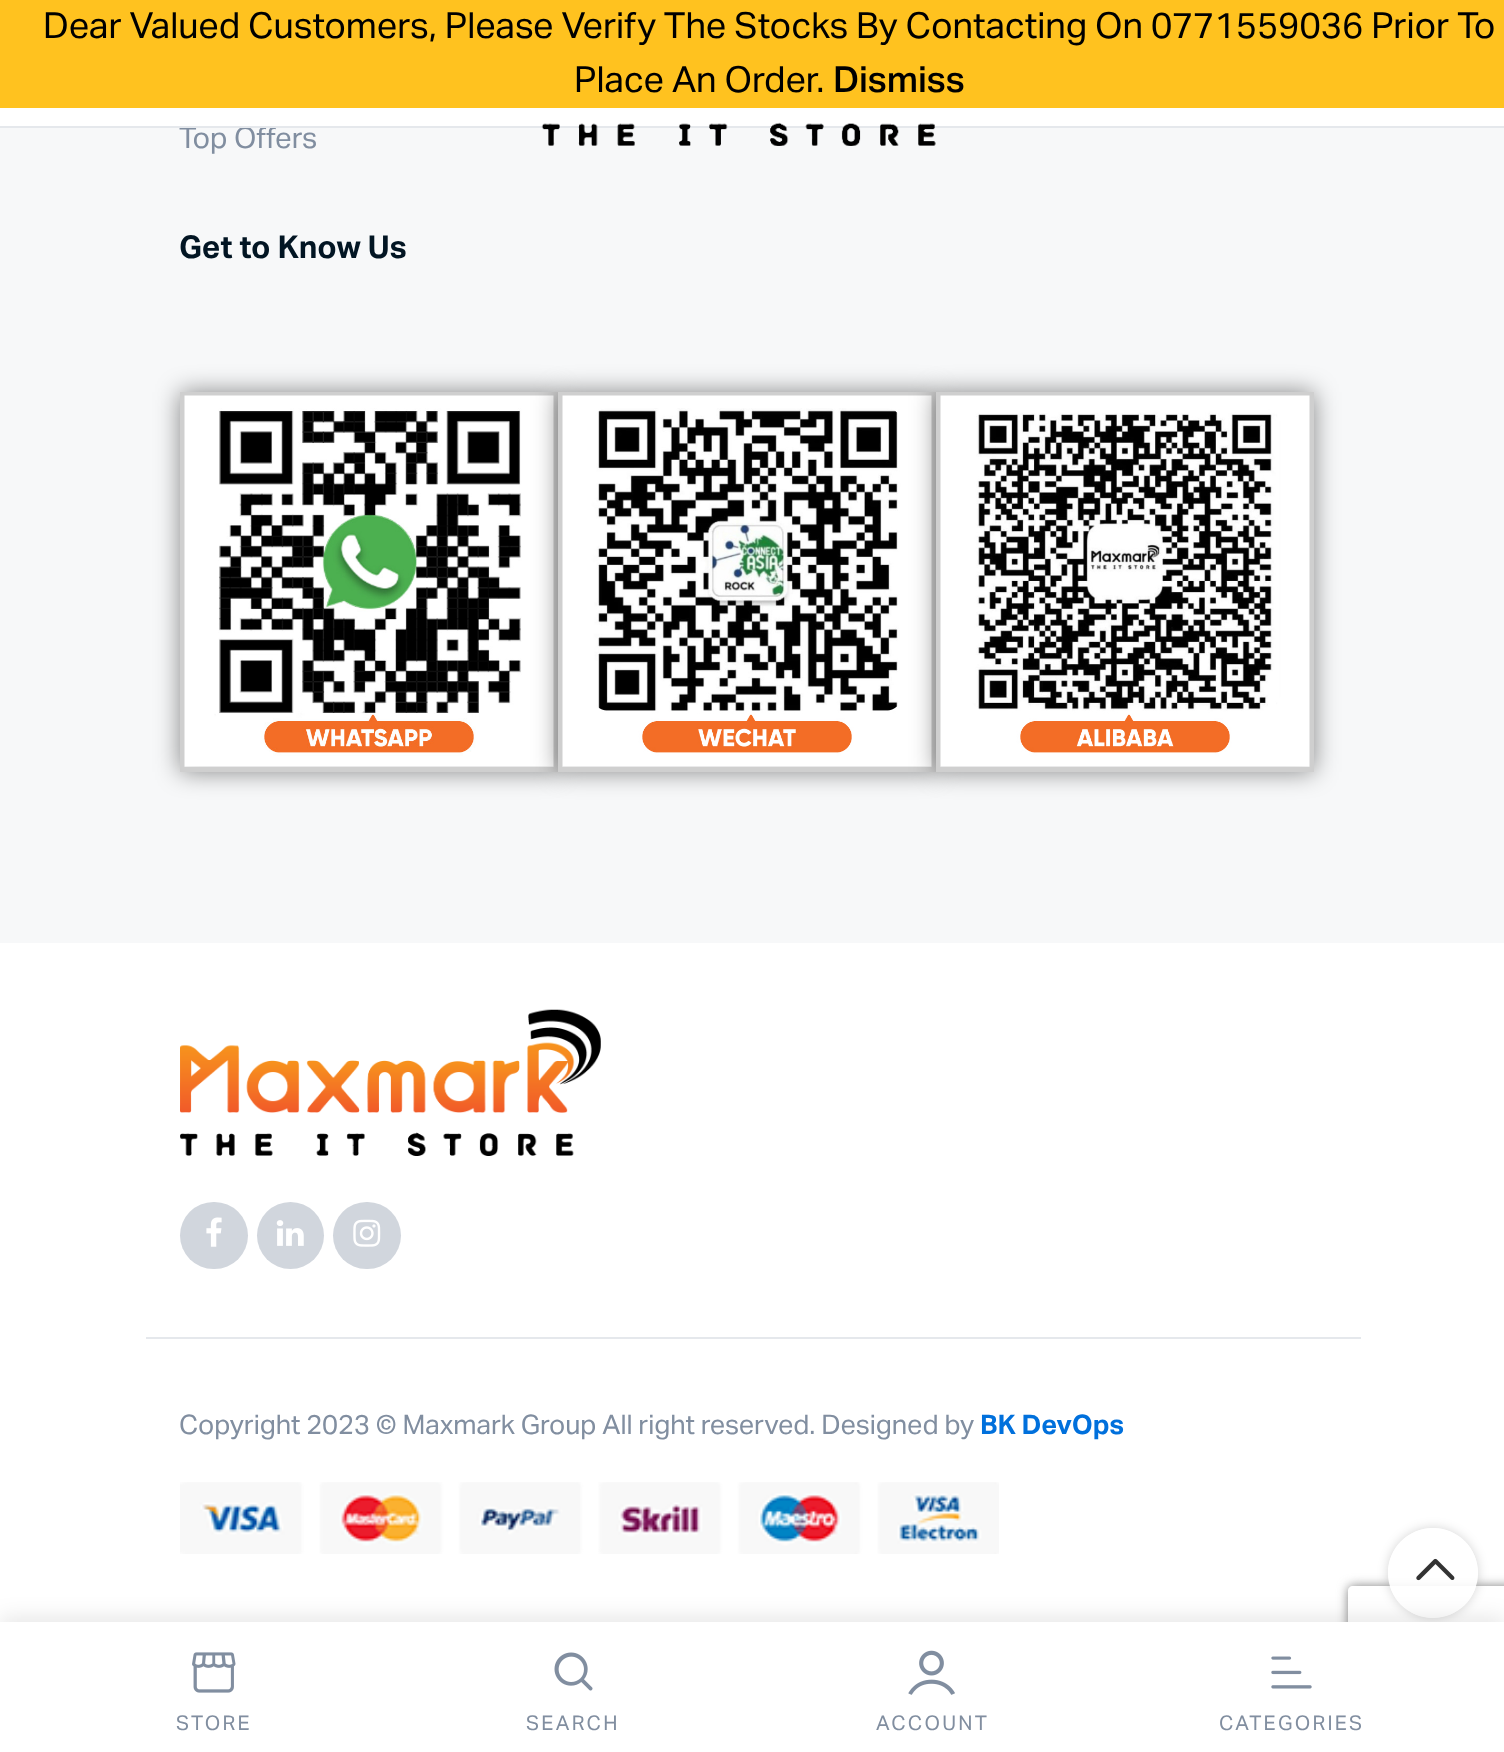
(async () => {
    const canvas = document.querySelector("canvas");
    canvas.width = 1504;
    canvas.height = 1752;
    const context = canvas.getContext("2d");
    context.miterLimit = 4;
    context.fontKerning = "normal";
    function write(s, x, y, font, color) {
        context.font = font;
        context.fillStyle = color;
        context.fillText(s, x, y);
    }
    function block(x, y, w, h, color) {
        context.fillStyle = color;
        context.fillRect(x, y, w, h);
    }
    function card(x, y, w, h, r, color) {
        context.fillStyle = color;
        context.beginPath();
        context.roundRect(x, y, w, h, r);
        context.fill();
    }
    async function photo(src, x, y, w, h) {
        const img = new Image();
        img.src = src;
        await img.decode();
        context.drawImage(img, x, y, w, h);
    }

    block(0, 0, 1504, 1752, "rgb(255, 255, 255)");
    block(0, 0, 1504, 108, "rgb(255, 194, 31)");
    context.letterSpacing = "-0.07px";
    write("Dear Valued Customers, Please Verify The Stocks By Contacting On 0771559036 Prior To", 43, 38, "36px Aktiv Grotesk", "rgb(0, 0, 0)");
    write("Place An Order.", 574, 92, "36px Aktiv Grotesk", "rgb(0, 0, 0)");
    write("Dismiss", 833, 92, "500 36px Aktiv Grotesk", "rgb(0, 0, 0)");
    block(0, 128, 1504, 815, "rgb(247, 248, 249)");
    write("Top Offers", 179, 148, "29.25px Aktiv Grotesk", "rgb(129, 142, 160)");
    block(0, 126, 1504, 2, "rgb(229, 232, 236)");
    await photo("media/1.png", 541, 122, 395, 24);
    context.letterSpacing = "0px";
    write("Get to Know Us", 179, 258, "bold 31.5px Aktiv Grotesk", "rgb(2, 21, 35)");
    context.fillStyle = "rgba(0, 0, 0, 0.46)";
    context.filter = "blur(12.5px)";
    context.beginPath();
    context.rect(180, 392, 378, 380);
    context.fill();
    context.filter = "none";
    context.strokeStyle = "rgb(207, 207, 207)";
    context.lineWidth = 5;
    context.strokeRect(182.5, 394.5, 373, 375);
    await photo("media/2.png", 184, 395, 370, 372);
    context.filter = "blur(12.5px)";
    context.beginPath();
    context.rect(558, 392, 378, 380);
    context.fill();
    context.filter = "none";
    context.strokeRect(560.5, 394.5, 373, 375);
    await photo("media/3.png", 562, 395, 370, 372);
    context.filter = "blur(12.5px)";
    context.beginPath();
    context.rect(936, 392, 378, 380);
    context.fill();
    context.filter = "none";
    context.strokeRect(938.5, 394.5, 373, 375);
    await photo("media/4.png", 940, 395, 370, 372);
    await photo("media/5.png", 180, 1009, 421, 147);
    card(180, 1202, 68, 67, 33.5, "rgb(209, 214, 221)");
    await photo("media/6.png", 206, 1217, 16, 30);
    context.beginPath();
    context.arc(290.5, 1235.5, 33.5, 0, Math.PI * 2);
    context.fill();
    await photo("media/7.png", 276, 1220, 28, 26);
    card(333, 1202, 68, 67, 33.5, "rgb(209, 214, 221)");
    await photo("media/8.png", 353, 1219, 28, 28);
    block(146, 1337, 1215, 2, "rgb(229, 232, 236)");
    context.letterSpacing = "-0.07px";
    write("Copyright 2023 © Maxmark Group All right reserved. Designed by", 179, 1434, "27px Aktiv Grotesk", "rgb(129, 142, 160)");
    write("BK DevOps", 980, 1434, "bold 27px Aktiv Grotesk", "rgb(0, 112, 220)");
    await photo("media/9.png", 180, 1482, 819, 72);
    context.save();
    context.beginPath();
    context.moveTo(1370, 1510);
    context.lineTo(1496, 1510);
    context.lineTo(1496, 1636);
    context.lineTo(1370, 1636);
    context.closePath();
    context.moveTo(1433, 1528);
    context.bezierCurveTo(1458, 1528, 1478, 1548, 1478, 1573);
    context.bezierCurveTo(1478, 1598, 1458, 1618, 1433, 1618);
    context.bezierCurveTo(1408, 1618, 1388, 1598, 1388, 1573);
    context.bezierCurveTo(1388, 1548, 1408, 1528, 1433, 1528);
    context.closePath();
    context.clip("evenodd");
    context.fillStyle = "rgba(0, 0, 0, 0.17)";
    context.filter = "blur(5.5px)";
    context.beginPath();
    context.roundRect(1388, 1528, 90, 90, 45);
    context.fill();
    context.filter = "none";
    context.restore();
    context.save();
    context.beginPath();
    context.moveTo(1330, 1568);
    context.lineTo(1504, 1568);
    context.lineTo(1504, 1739);
    context.lineTo(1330, 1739);
    context.closePath();
    context.moveTo(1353, 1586);
    context.lineTo(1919, 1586);
    context.bezierCurveTo(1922, 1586, 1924, 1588, 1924, 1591);
    context.lineTo(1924, 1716);
    context.bezierCurveTo(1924, 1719, 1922, 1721, 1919, 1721);
    context.lineTo(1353, 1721);
    context.bezierCurveTo(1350, 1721, 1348, 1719, 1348, 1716);
    context.lineTo(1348, 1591);
    context.bezierCurveTo(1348, 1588, 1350, 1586, 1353, 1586);
    context.closePath();
    context.clip("evenodd");
    context.fillStyle = "rgb(128, 128, 128)";
    context.filter = "blur(5.5px)";
    context.beginPath();
    context.roundRect(1348, 1586, 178, 135, 5);
    context.fill();
    context.filter = "none";
    context.restore();
    context.fillStyle = "rgba(255, 255, 255, 0.9)";
    context.beginPath();
    context.arc(1433, 1573, 45, 0, Math.PI * 2);
    context.fill();
    await photo("media/10.png", 1416, 1558, 39, 23);
    context.fillStyle = "rgba(0, 0, 0, 0.1)";
    context.filter = "blur(11px)";
    context.beginPath();
    context.rect(0, 1618, 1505, 130);
    context.fill();
    context.filter = "none";
    block(0, 1622, 1504, 130, "rgb(255, 255, 255)");
    await photo("media/11.png", 192, 1652, 44, 41);
    context.letterSpacing = "2.25px";
    write("STORE", 176, 1730, "20.25px Aktiv Grotesk", "rgb(129, 142, 160)");
    await photo("media/12.png", 554, 1652, 39, 39);
    write("SEARCH", 526, 1730, "20.25px Aktiv Grotesk", "rgb(129, 142, 160)");
    await photo("media/13.png", 908, 1650, 47, 45);
    write("ACCOUNT", 876, 1730, "20.25px Aktiv Grotesk", "rgb(129, 142, 160)");
    await photo("media/14.png", 1271, 1656, 41, 33);
    write("CATEGORIES", 1219, 1730, "20.25px Aktiv Grotesk", "rgb(129, 142, 160)");
})();
